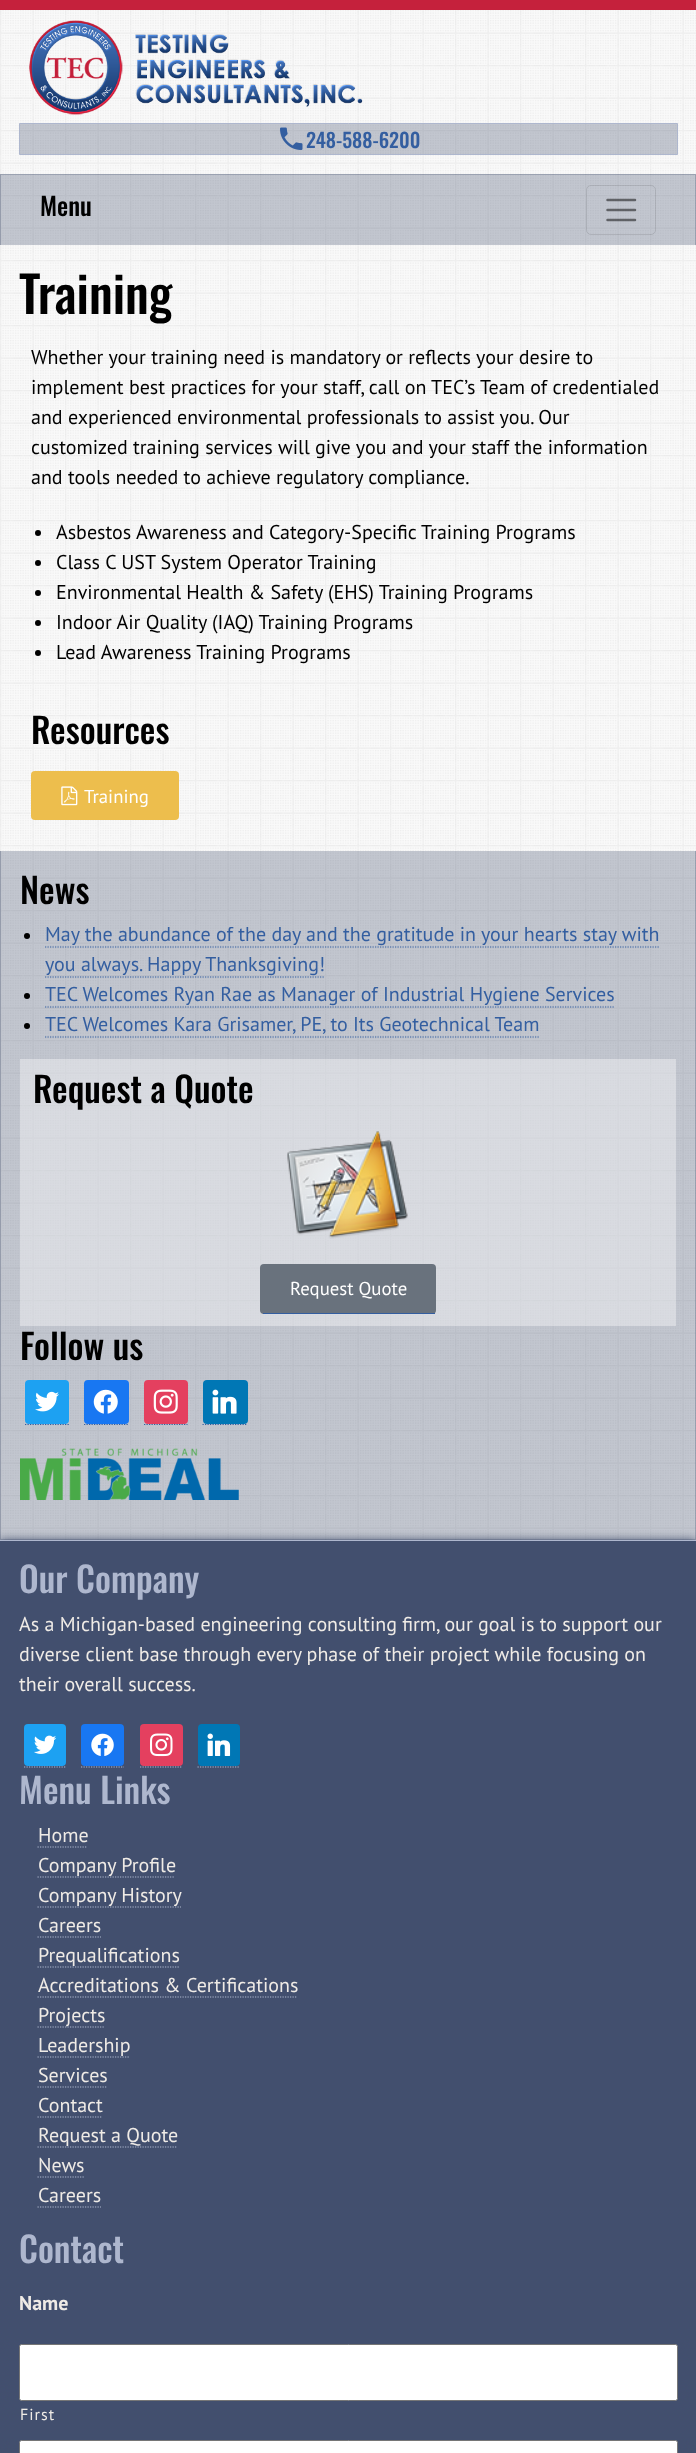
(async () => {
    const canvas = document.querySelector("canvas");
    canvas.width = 696;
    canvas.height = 2453;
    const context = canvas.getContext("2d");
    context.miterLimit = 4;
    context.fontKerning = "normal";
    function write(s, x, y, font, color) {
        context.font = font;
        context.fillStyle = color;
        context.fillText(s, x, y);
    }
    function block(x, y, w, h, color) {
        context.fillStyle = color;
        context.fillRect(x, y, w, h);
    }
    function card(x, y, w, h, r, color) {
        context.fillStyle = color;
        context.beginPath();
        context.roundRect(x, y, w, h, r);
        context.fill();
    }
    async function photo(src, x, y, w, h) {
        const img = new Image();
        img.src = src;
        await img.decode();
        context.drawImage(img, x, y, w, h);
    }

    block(0, 0, 696, 2453, "rgb(255, 255, 255)");
    await photo("media/1.png", 0, 10, 696, 1530);
    block(0, 0, 696, 10, "rgb(197, 33, 60)");
    await photo("media/2.png", 29, 20, 334, 95);
    context.fillStyle = "rgba(66, 79, 110, 0.3)";
    context.beginPath();
    context.rect(19.5, 123.5, 658, 31);
    context.fill();
    context.strokeStyle = "rgb(174, 183, 206)";
    context.stroke();
    await photo("media/3.png", 280, 127, 23, 23);
    write("248-588-6200", 306, 148, "500 20px Oswald", "rgb(51, 94, 160)");
    block(0, 174, 696, 71, "rgba(66, 79, 110, 0.3)");
    context.beginPath();
    context.moveTo(0, 174);
    context.lineTo(696, 174);
    context.lineTo(695, 175);
    context.lineTo(1, 175);
    context.closePath();
    context.fill();
    context.beginPath();
    context.moveTo(696, 174);
    context.lineTo(696, 245);
    context.lineTo(695, 245);
    context.lineTo(695, 175);
    context.closePath();
    context.fill();
    context.beginPath();
    context.moveTo(0, 245);
    context.lineTo(0, 174);
    context.lineTo(1, 175);
    context.lineTo(1, 245);
    context.closePath();
    context.fill();
    write("Menu", 40, 216, "500 25px Oswald", "rgb(0, 0, 0)");
    context.beginPath();
    context.roundRect(586.5, 185.5, 69, 49, 4.5);
    context.strokeStyle = "rgba(0, 0, 0, 0.1)";
    context.stroke();
    context.beginPath();
    context.moveTo(607.5, 200);
    context.lineTo(635, 200);
    context.moveTo(607.5, 210);
    context.lineTo(635, 210);
    context.moveTo(607.5, 220);
    context.lineTo(635, 220);
    context.strokeStyle = "rgba(0, 0, 0, 0.5)";
    context.lineWidth = 2.5;
    context.lineCap = "round";
    context.stroke();
    write("Training", 19, 314, "500 50px Oswald", "rgb(0, 0, 0)");
    write("Whether your training need is mandatory or reflects your desire to", 31, 364, "20px PT Sans", "rgb(0, 0, 0)");
    write("implement best practices for your staff, call on TEC’s Team of credentialed", 31, 394, "20px PT Sans", "rgb(0, 0, 0)");
    write("and experienced environmental professionals to assist you. Our", 31, 424, "20px PT Sans", "rgb(0, 0, 0)");
    write("customized training services will give you and your staff the information", 31, 454, "20px PT Sans", "rgb(0, 0, 0)");
    write("and tools needed to achieve regulatory compliance.", 31, 484, "20px PT Sans", "rgb(0, 0, 0)");
    context.beginPath();
    context.arc(38, 533, 3, 0, Math.PI * 2);
    context.fill();
    write("Asbestos Awareness and Category-Specific Training Programs", 56, 539, "20px PT Sans", "rgb(0, 0, 0)");
    context.beginPath();
    context.arc(38, 563, 3, 0, Math.PI * 2);
    context.fill();
    write("Class C UST System Operator Training", 56, 569, "20px PT Sans", "rgb(0, 0, 0)");
    context.beginPath();
    context.arc(38, 593, 3, 0, Math.PI * 2);
    context.fill();
    write("Environmental Health & Safety (EHS) Training Programs", 56, 599, "20px PT Sans", "rgb(0, 0, 0)");
    context.beginPath();
    context.arc(38, 623, 3, 0, Math.PI * 2);
    context.fill();
    write("Indoor Air Quality (IAQ) Training Programs", 56, 629, "20px PT Sans", "rgb(0, 0, 0)");
    context.beginPath();
    context.arc(38, 653, 3, 0, Math.PI * 2);
    context.fill();
    write("Lead Awareness Training Programs", 56, 659, "20px PT Sans", "rgb(0, 0, 0)");
    write("Resources", 31, 744, "500 35px Oswald", "rgb(0, 0, 0)");
    card(31, 771, 148, 49, 4, "rgb(237, 190, 77)");
    await photo("media/4.png", 61, 786, 17, 20);
    write("Training", 84, 803, "18.75px PT Sans", "rgb(255, 255, 255)");
    context.fillStyle = "rgb(66, 79, 110)";
    context.filter = "blur(5px)";
    context.beginPath();
    context.rect(0, 1540, 696, 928);
    context.fill();
    context.filter = "none";
    block(0, 851, 696, 689, "rgba(66, 79, 110, 0.3)");
    context.beginPath();
    context.moveTo(696, 851);
    context.lineTo(696, 1540);
    context.lineTo(695, 1539);
    context.lineTo(695, 851);
    context.closePath();
    context.fill();
    context.beginPath();
    context.moveTo(696, 1540);
    context.lineTo(0, 1540);
    context.lineTo(1, 1539);
    context.lineTo(695, 1539);
    context.closePath();
    context.fill();
    context.beginPath();
    context.moveTo(0, 1540);
    context.lineTo(0, 851);
    context.lineTo(1, 851);
    context.lineTo(1, 1539);
    context.closePath();
    context.fill();
    write("News", 20, 904, "500 35px Oswald", "rgb(0, 0, 0)");
    context.beginPath();
    context.arc(27, 936, 3, 0, Math.PI * 2);
    context.fill();
    write("May the abundance of the day and the gratitude in your hearts stay with", 45, 941, "20px PT Sans", "rgb(51, 94, 160)");
    context.beginPath();
    context.moveTo(45, 947);
    context.lineTo(660, 947);
    context.strokeStyle = "rgb(51, 94, 160)";
    context.lineWidth = 1.2;
    context.lineCap = "butt";
    context.setLineDash([1.25, 1.25]);
    context.stroke();
    write("you always. Happy Thanksgiving!", 45, 971, "20px PT Sans", "rgb(51, 94, 160)");
    context.beginPath();
    context.moveTo(45, 977);
    context.lineTo(325, 977);
    context.stroke();
    context.fillStyle = "rgb(0, 0, 0)";
    context.beginPath();
    context.arc(27, 996, 3, 0, Math.PI * 2);
    context.fill();
    write("TEC Welcomes Ryan Rae as Manager of Industrial Hygiene Services", 45, 1001, "20px PT Sans", "rgb(51, 94, 160)");
    context.beginPath();
    context.moveTo(45, 1007);
    context.lineTo(615, 1007);
    context.stroke();
    context.fillStyle = "rgb(0, 0, 0)";
    context.beginPath();
    context.arc(27, 1026, 3, 0, Math.PI * 2);
    context.fill();
    write("TEC Welcomes Kara Grisamer, PE, to Its Geotechnical Team", 45, 1031, "20px PT Sans", "rgb(51, 94, 160)");
    context.beginPath();
    context.moveTo(45, 1037);
    context.lineTo(540, 1037);
    context.stroke();
    block(20, 1059, 656, 267, "rgba(255, 255, 255, 0.38)");
    write("Request a Quote", 33, 1103, "500 35px Oswald", "rgb(0, 0, 0)");
    await photo("media/5.png", 287, 1131, 121, 108);
    card(260, 1264, 176, 50, 4, "rgb(105, 114, 125)");
    block(263, 1313, 172, 1, "rgb(51, 94, 160)");
    write("Request Quote", 290, 1295, "18.75px PT Sans", "rgb(255, 255, 255)");
    write("Follow us", 20, 1360, "500 35px Oswald", "rgb(0, 0, 0)");
    context.beginPath();
    context.moveTo(25, 1424.5);
    context.lineTo(69, 1424.5);
    context.stroke();
    card(25, 1380, 44, 44, 4, "rgb(29, 161, 242)");
    await photo("media/6.png", 35, 1391, 24, 21);
    context.beginPath();
    context.moveTo(84, 1424.5);
    context.lineTo(129, 1424.5);
    context.stroke();
    card(84, 1380, 45, 44, 4, "rgb(24, 119, 242)");
    await photo("media/7.png", 93, 1389, 25, 25);
    context.beginPath();
    context.moveTo(144, 1424.5);
    context.lineTo(187.5, 1424.5);
    context.stroke();
    card(144, 1380, 44, 44, 4, "rgb(228, 64, 95)");
    await photo("media/8.png", 153, 1389, 25, 25);
    context.beginPath();
    context.moveTo(202.5, 1424.5);
    context.lineTo(247.5, 1424.5);
    context.stroke();
    card(203, 1380, 45, 44, 4, "rgb(0, 119, 181)");
    await photo("media/9.png", 212, 1389, 25, 25);
    await photo("media/10.png", 20, 1448, 219, 52);
    block(0, 1541, 696, 912, "rgb(66, 79, 110)");
    block(0, 1540, 696, 1, "rgb(174, 183, 206)");
    write("Our Company", 19, 1593, "500 35px Oswald", "rgb(174, 183, 206)");
    write("As a Michigan-based engineering consulting firm, our goal is to support our", 19, 1631, "20px PT Sans", "rgb(239, 235, 230)");
    write("diverse client base through every phase of their project while focusing on", 19, 1661, "20px PT Sans", "rgb(239, 235, 230)");
    write("their overall success.", 19, 1691, "20px PT Sans", "rgb(239, 235, 230)");
    context.beginPath();
    context.moveTo(24, 1767);
    context.lineTo(66, 1767);
    context.strokeStyle = "rgb(174, 183, 206)";
    context.stroke();
    card(24, 1724, 42, 42, 4, "rgb(29, 161, 242)");
    await photo("media/11.png", 34, 1735, 23, 19);
    context.beginPath();
    context.moveTo(81, 1767);
    context.lineTo(124, 1767);
    context.stroke();
    card(81, 1724, 43, 42, 4, "rgb(24, 119, 242)");
    await photo("media/12.png", 91, 1733, 23, 23);
    context.beginPath();
    context.moveTo(140, 1767);
    context.lineTo(182.5, 1767);
    context.stroke();
    card(140, 1724, 43, 42, 4, "rgb(228, 64, 95)");
    await photo("media/13.png", 150, 1733, 23, 24);
    context.beginPath();
    context.moveTo(197.5, 1767);
    context.lineTo(240, 1767);
    context.stroke();
    card(198, 1724, 42, 42, 4, "rgb(0, 119, 181)");
    await photo("media/14.png", 207, 1733, 24, 23);
    write("Menu Links", 19, 1804, "500 35px Oswald", "rgb(174, 183, 206)");
    write("Home", 38, 1842, "20px PT Sans", "rgb(239, 235, 230)");
    context.beginPath();
    context.moveTo(37.5, 1847);
    context.lineTo(87.5, 1847);
    context.stroke();
    context.beginPath();
    context.moveTo(37.5, 1877);
    context.lineTo(175, 1877);
    context.stroke();
    write("Company Profile", 38, 1872, "20px PT Sans", "rgb(239, 235, 230)");
    context.beginPath();
    context.moveTo(37.5, 1907);
    context.lineTo(181, 1907);
    context.stroke();
    write("Company History", 38, 1902, "20px PT Sans", "rgb(239, 235, 230)");
    write("Careers", 38, 1932, "20px PT Sans", "rgb(239, 235, 230)");
    context.beginPath();
    context.moveTo(37.5, 1937);
    context.lineTo(101, 1937);
    context.stroke();
    write("Prequalifications", 38, 1962, "20px PT Sans", "rgb(239, 235, 230)");
    context.beginPath();
    context.moveTo(37.5, 1967);
    context.lineTo(179, 1967);
    context.stroke();
    write("Accreditations & Certifications", 38, 1992, "20px PT Sans", "rgb(239, 235, 230)");
    context.beginPath();
    context.moveTo(37.5, 1997);
    context.lineTo(297.5, 1997);
    context.stroke();
    context.beginPath();
    context.moveTo(37.5, 2027);
    context.lineTo(105, 2027);
    context.stroke();
    write("Projects", 38, 2022, "20px PT Sans", "rgb(239, 235, 230)");
    write("Leadership", 38, 2052, "20px PT Sans", "rgb(239, 235, 230)");
    context.beginPath();
    context.moveTo(37.5, 2057);
    context.lineTo(130, 2057);
    context.stroke();
    write("Services", 38, 2082, "20px PT Sans", "rgb(239, 235, 230)");
    context.beginPath();
    context.moveTo(37.5, 2087);
    context.lineTo(107.5, 2087);
    context.stroke();
    write("Contact", 38, 2112, "20px PT Sans", "rgb(239, 235, 230)");
    context.beginPath();
    context.moveTo(37.5, 2117);
    context.lineTo(102.5, 2117);
    context.stroke();
    write("Request a Quote", 38, 2142, "20px PT Sans", "rgb(239, 235, 230)");
    context.beginPath();
    context.moveTo(37.5, 2147);
    context.lineTo(177.5, 2147);
    context.stroke();
    write("News", 38, 2172, "20px PT Sans", "rgb(239, 235, 230)");
    context.beginPath();
    context.moveTo(37.5, 2177);
    context.lineTo(84, 2177);
    context.stroke();
    write("Careers", 38, 2202, "20px PT Sans", "rgb(239, 235, 230)");
    context.beginPath();
    context.moveTo(37.5, 2207);
    context.lineTo(101, 2207);
    context.stroke();
    write("Contact", 19, 2263, "500 35px Oswald", "rgb(174, 183, 206)");
    write("Name", 19, 2310, "bold 20px PT Sans", "rgb(239, 235, 230)");
    context.fillStyle = "rgb(255, 255, 255)";
    context.beginPath();
    context.roundRect(19.5, 2344.5, 658, 56, 2);
    context.fill();
    context.strokeStyle = "rgb(118, 118, 118)";
    context.lineWidth = 1;
    context.setLineDash([]);
    context.stroke();
    context.letterSpacing = "1px";
    write("First", 20, 2420, "16px PT Sans", "rgb(239, 235, 230)");
    context.fillStyle = "rgb(255, 255, 255)";
    context.beginPath();
    context.roundRect(19.5, 2440.5, 658, 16, 2);
    context.fill();
    context.stroke();
})();
